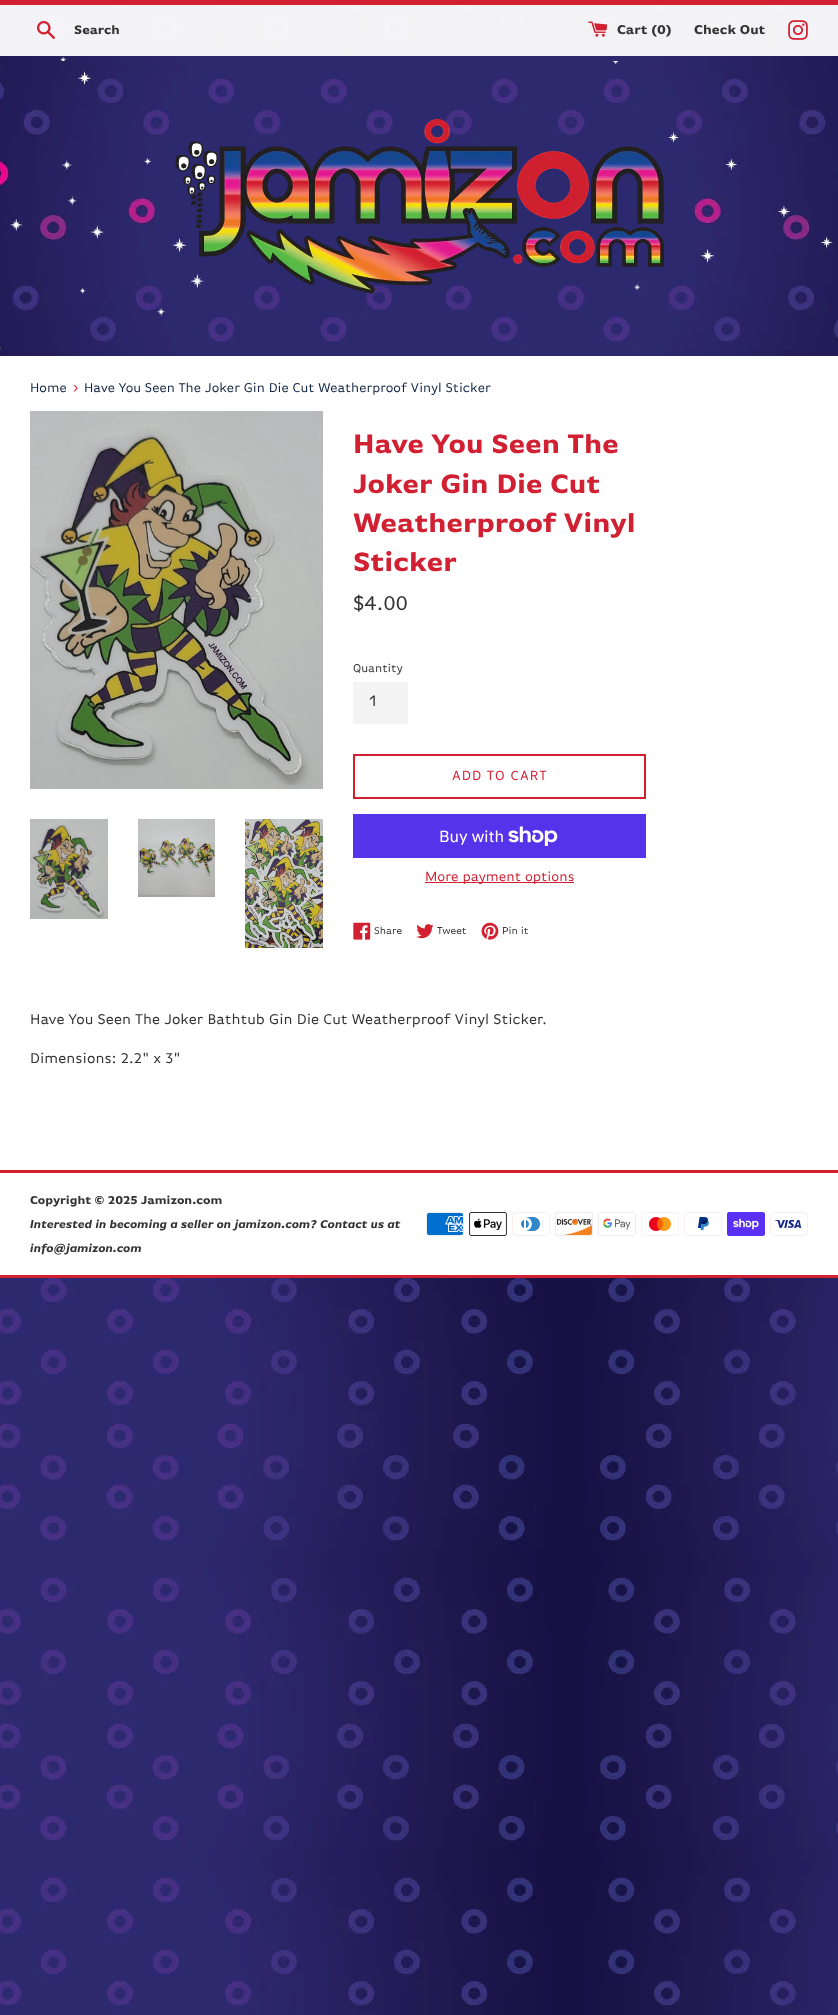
(async () => {
    const canvas = document.querySelector("canvas");
    canvas.width = 838;
    canvas.height = 2015;
    const context = canvas.getContext("2d");
    context.miterLimit = 4;
    context.fontKerning = "normal";
    function write(s, x, y, font, color) {
        context.font = font;
        context.fillStyle = color;
        context.fillText(s, x, y);
    }
    function block(x, y, w, h, color) {
        context.fillStyle = color;
        context.fillRect(x, y, w, h);
    }
    async function photo(src, x, y, w, h) {
        const img = new Image();
        img.src = src;
        await img.decode();
        context.drawImage(img, x, y, w, h);
    }

    block(0, 0, 838, 2015, "rgb(255, 255, 255)");
    await photo("media/1.png", 0, 5, 838, 2010);
    block(0, 0, 838, 5, "rgb(210, 32, 48)");
    block(0, 5, 838, 51, "rgba(255, 255, 255, 0.95)");
    await photo("media/2.png", 37, 21, 18, 18);
    write("Search", 74, 34, "bold 13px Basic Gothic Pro", "rgb(51, 51, 51)");
    await photo("media/3.png", 588, 21, 20, 16);
    write("Cart (0)", 617, 34, "bold 13.5px Basic Gothic Pro", "rgb(51, 51, 51)");
    write("Check Out", 694, 34, "bold 13.5px Basic Gothic Pro", "rgb(51, 51, 51)");
    await photo("media/4.png", 788, 20, 20, 20);
    await photo("media/5.png", 0, 56, 838, 300);
    await photo("media/6.png", 175, 119, 489, 175);
    block(0, 356, 838, 919, "rgb(255, 255, 255)");
    write("Home", 30, 392, "13.5px Basic Gothic Pro", "rgb(15, 35, 65)");
    write("›", 73, 392, "16px Basic Gothic Pro", "rgb(210, 32, 51)");
    write("Have You Seen The Joker Gin Die Cut Weatherproof Vinyl Sticker", 84, 392, "13.5px Basic Gothic Pro", "rgb(15, 35, 65)");
    await photo("media/7.png", 30, 411, 293, 378);
    await photo("media/8.png", 30, 819, 78, 100);
    await photo("media/9.png", 138, 819, 77, 78);
    await photo("media/10.png", 245, 819, 78, 129);
    write("Have You Seen The", 353, 453, "bold 28px Basic Gothic Pro", "rgb(210, 32, 51)");
    write("Joker Gin Die Cut", 353, 493, "bold 28px Basic Gothic Pro", "rgb(210, 32, 51)");
    write("Weatherproof Vinyl", 353, 532, "bold 28px Basic Gothic Pro", "rgb(210, 32, 51)");
    write("Sticker", 353, 571, "bold 28px Basic Gothic Pro", "rgb(210, 32, 51)");
    write("$4.00", 353, 610, "21px Basic Gothic Pro", "rgb(51, 51, 51)");
    write("Quantity", 353, 672, "12px Basic Gothic Pro", "rgb(51, 51, 51)");
    block(353, 682, 55, 42, "rgb(244, 244, 244)");
    write("1", 369, 706, "16px Basic Gothic Pro", "rgb(51, 51, 51)");
    context.strokeStyle = "rgb(210, 32, 48)";
    context.lineWidth = 2;
    context.strokeRect(354, 755, 291, 43);
    context.letterSpacing = "1px";
    write("ADD TO CART", 452, 780, "14px Basic Gothic Pro", "rgb(210, 32, 51)");
    block(353, 814, 293, 44, "rgb(84, 51, 235)");
    context.letterSpacing = "0px";
    write("Buy with", 439, 842, "16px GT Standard", "rgb(255, 255, 255)");
    await photo("media/11.png", 508, 826, 50, 20);
    block(425, 882, 149, 1, "rgb(210, 32, 48)");
    write("More payment options", 425, 881, "14px Basic Gothic Pro", "rgb(210, 32, 51)");
    await photo("media/12.png", 353, 922, 18, 18);
    write("Share", 374, 934, "10.5px Basic Gothic Pro", "rgb(51, 51, 51)");
    await photo("media/13.png", 416, 924, 18, 15);
    write("Tweet", 437, 934, "10.5px Basic Gothic Pro", "rgb(51, 51, 51)");
    await photo("media/14.png", 481, 922, 18, 18);
    write("Pin it", 502, 934, "10.5px Basic Gothic Pro", "rgb(51, 51, 51)");
    write("Have You Seen The Joker Bathtub Gin Die Cut Weatherproof Vinyl Sticker.", 30, 1024, "15px Basic Gothic Pro", "rgb(51, 51, 51)");
    write("Dimensions: 2.2\" x 3\"", 30, 1063, "15px Basic Gothic Pro", "rgb(51, 51, 51)");
    block(0, 1170, 838, 3, "rgb(209, 33, 49)");
    block(0, 1275, 838, 3, "rgb(209, 33, 49)");
    write("Copyright © 2025 Jamizon.com", 30, 1204, "bold 12px Basic Gothic Pro", "rgb(51, 51, 51)");
    write("Interested in becoming a seller on jamizon.com? Contact us at", 30, 1228, "italic bold 12px Basic Gothic Pro", "rgb(51, 51, 51)");
    write("info@jamizon.com", 30, 1252, "italic bold 12px Basic Gothic Pro", "rgb(51, 51, 51)");
    await photo("media/15.png", 426, 1212, 38, 24);
    await photo("media/16.png", 469, 1212, 38, 24);
    await photo("media/17.png", 512, 1212, 38, 24);
    await photo("media/18.png", 555, 1212, 38, 24);
    await photo("media/19.png", 598, 1212, 38, 24);
    await photo("media/20.png", 641, 1212, 38, 24);
    await photo("media/21.png", 684, 1212, 38, 24);
    await photo("media/22.png", 727, 1212, 38, 24);
    await photo("media/23.png", 770, 1212, 38, 24);
})();
